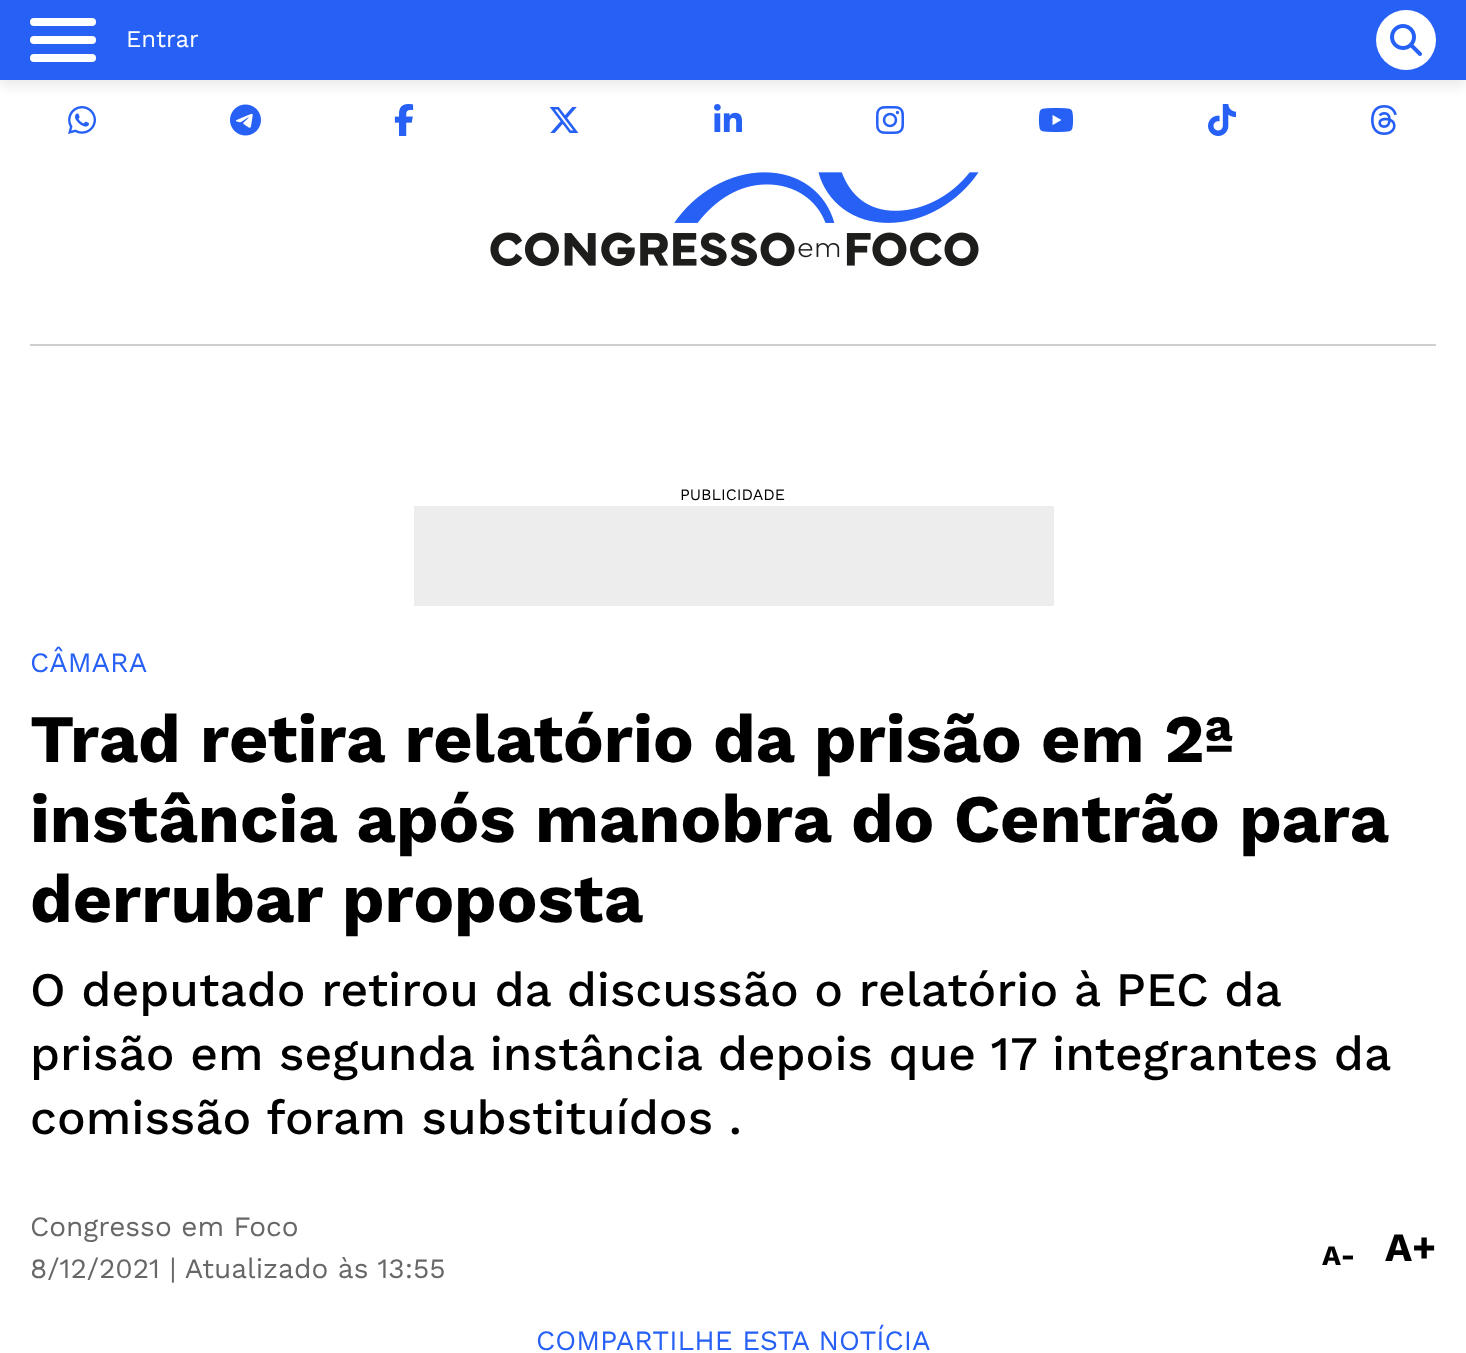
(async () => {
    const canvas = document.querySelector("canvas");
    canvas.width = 1466;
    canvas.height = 1353;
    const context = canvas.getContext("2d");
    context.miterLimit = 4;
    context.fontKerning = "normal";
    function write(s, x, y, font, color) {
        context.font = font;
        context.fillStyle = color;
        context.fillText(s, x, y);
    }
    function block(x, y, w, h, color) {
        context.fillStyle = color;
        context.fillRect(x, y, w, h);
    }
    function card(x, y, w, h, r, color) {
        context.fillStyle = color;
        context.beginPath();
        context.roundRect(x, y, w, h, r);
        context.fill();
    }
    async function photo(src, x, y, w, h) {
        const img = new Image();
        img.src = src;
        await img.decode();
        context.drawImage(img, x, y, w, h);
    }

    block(0, 0, 1466, 1353, "rgb(255, 255, 255)");
    await photo("media/3.png", 230, 104, 31, 32);
    await photo("media/4.png", 394, 104, 20, 32);
    await photo("media/6.png", 714, 104, 28, 28);
    await photo("media/9.png", 1208, 104, 28, 32);
    context.fillStyle = "rgba(122, 122, 122, 0.16)";
    context.filter = "blur(6px)";
    context.beginPath();
    context.rect(0, 6, 1466, 80);
    context.fill();
    context.filter = "none";
    block(0, 0, 1466, 80, "rgb(38, 96, 245)");
    card(30, 18, 66, 8, 4, "rgb(255, 255, 255)");
    card(30, 36, 66, 8, 4, "rgb(255, 255, 255)");
    card(30, 54, 66, 8, 4, "rgb(255, 255, 255)");
    write("Entrar", 126, 47, "24px Work Sans", "rgb(255, 255, 255)");
    context.beginPath();
    context.arc(1406, 40, 30, 0, Math.PI * 2);
    context.fill();
    await photo("media/1.png", 1390, 24, 32, 32);
    await photo("media/2.png", 68, 106, 28, 28);
    await photo("media/5.png", 549, 107, 30, 26);
    await photo("media/7.png", 876, 106, 28, 28);
    await photo("media/8.png", 1038, 108, 36, 24);
    await photo("media/10.png", 1371, 105, 26, 30);
    await photo("media/11.png", 490, 172, 489, 95);
    block(30, 344, 1406, 2, "rgb(206, 206, 206)");
    write("PUBLICIDADE", 680, 500, "16px Work Sans", "rgb(0, 0, 0)");
    block(414, 506, 640, 100, "rgb(237, 237, 237)");
    write("CÂMARA", 30, 672, "28px Work Sans", "rgb(38, 96, 245)");
    write("Trad retira relatório da prisão em 2ª", 30, 762, "bold 68px Work Sans", "rgb(0, 0, 0)");
    write("instância após manobra do Centrão para", 30, 842, "bold 68px Work Sans", "rgb(0, 0, 0)");
    write("derrubar proposta", 30, 922, "bold 68px Work Sans", "rgb(0, 0, 0)");
    write("O deputado retirou da discussão o relatório à PEC da", 30, 1006, "500 48px Work Sans", "rgb(0, 0, 0)");
    write("prisão em segunda instância depois que 17 integrantes da", 30, 1070, "500 48px Work Sans", "rgb(0, 0, 0)");
    write("comissão foram substituídos .", 30, 1134, "500 48px Work Sans", "rgb(0, 0, 0)");
    write("Congresso em Foco", 30, 1236, "28px Work Sans", "rgb(103, 103, 103)");
    write("8/12/2021 | Atualizado às 13:55", 30, 1278, "28px Work Sans", "rgb(103, 103, 103)");
    write("A-", 1322, 1265, "bold 28px Work Sans", "rgb(0, 0, 0)");
    write("A+", 1385, 1261, "bold 40px Work Sans", "rgb(0, 0, 0)");
    write("COMPARTILHE ESTA NOTÍCIA", 536, 1350, "28px Work Sans", "rgb(38, 96, 245)");
})();
